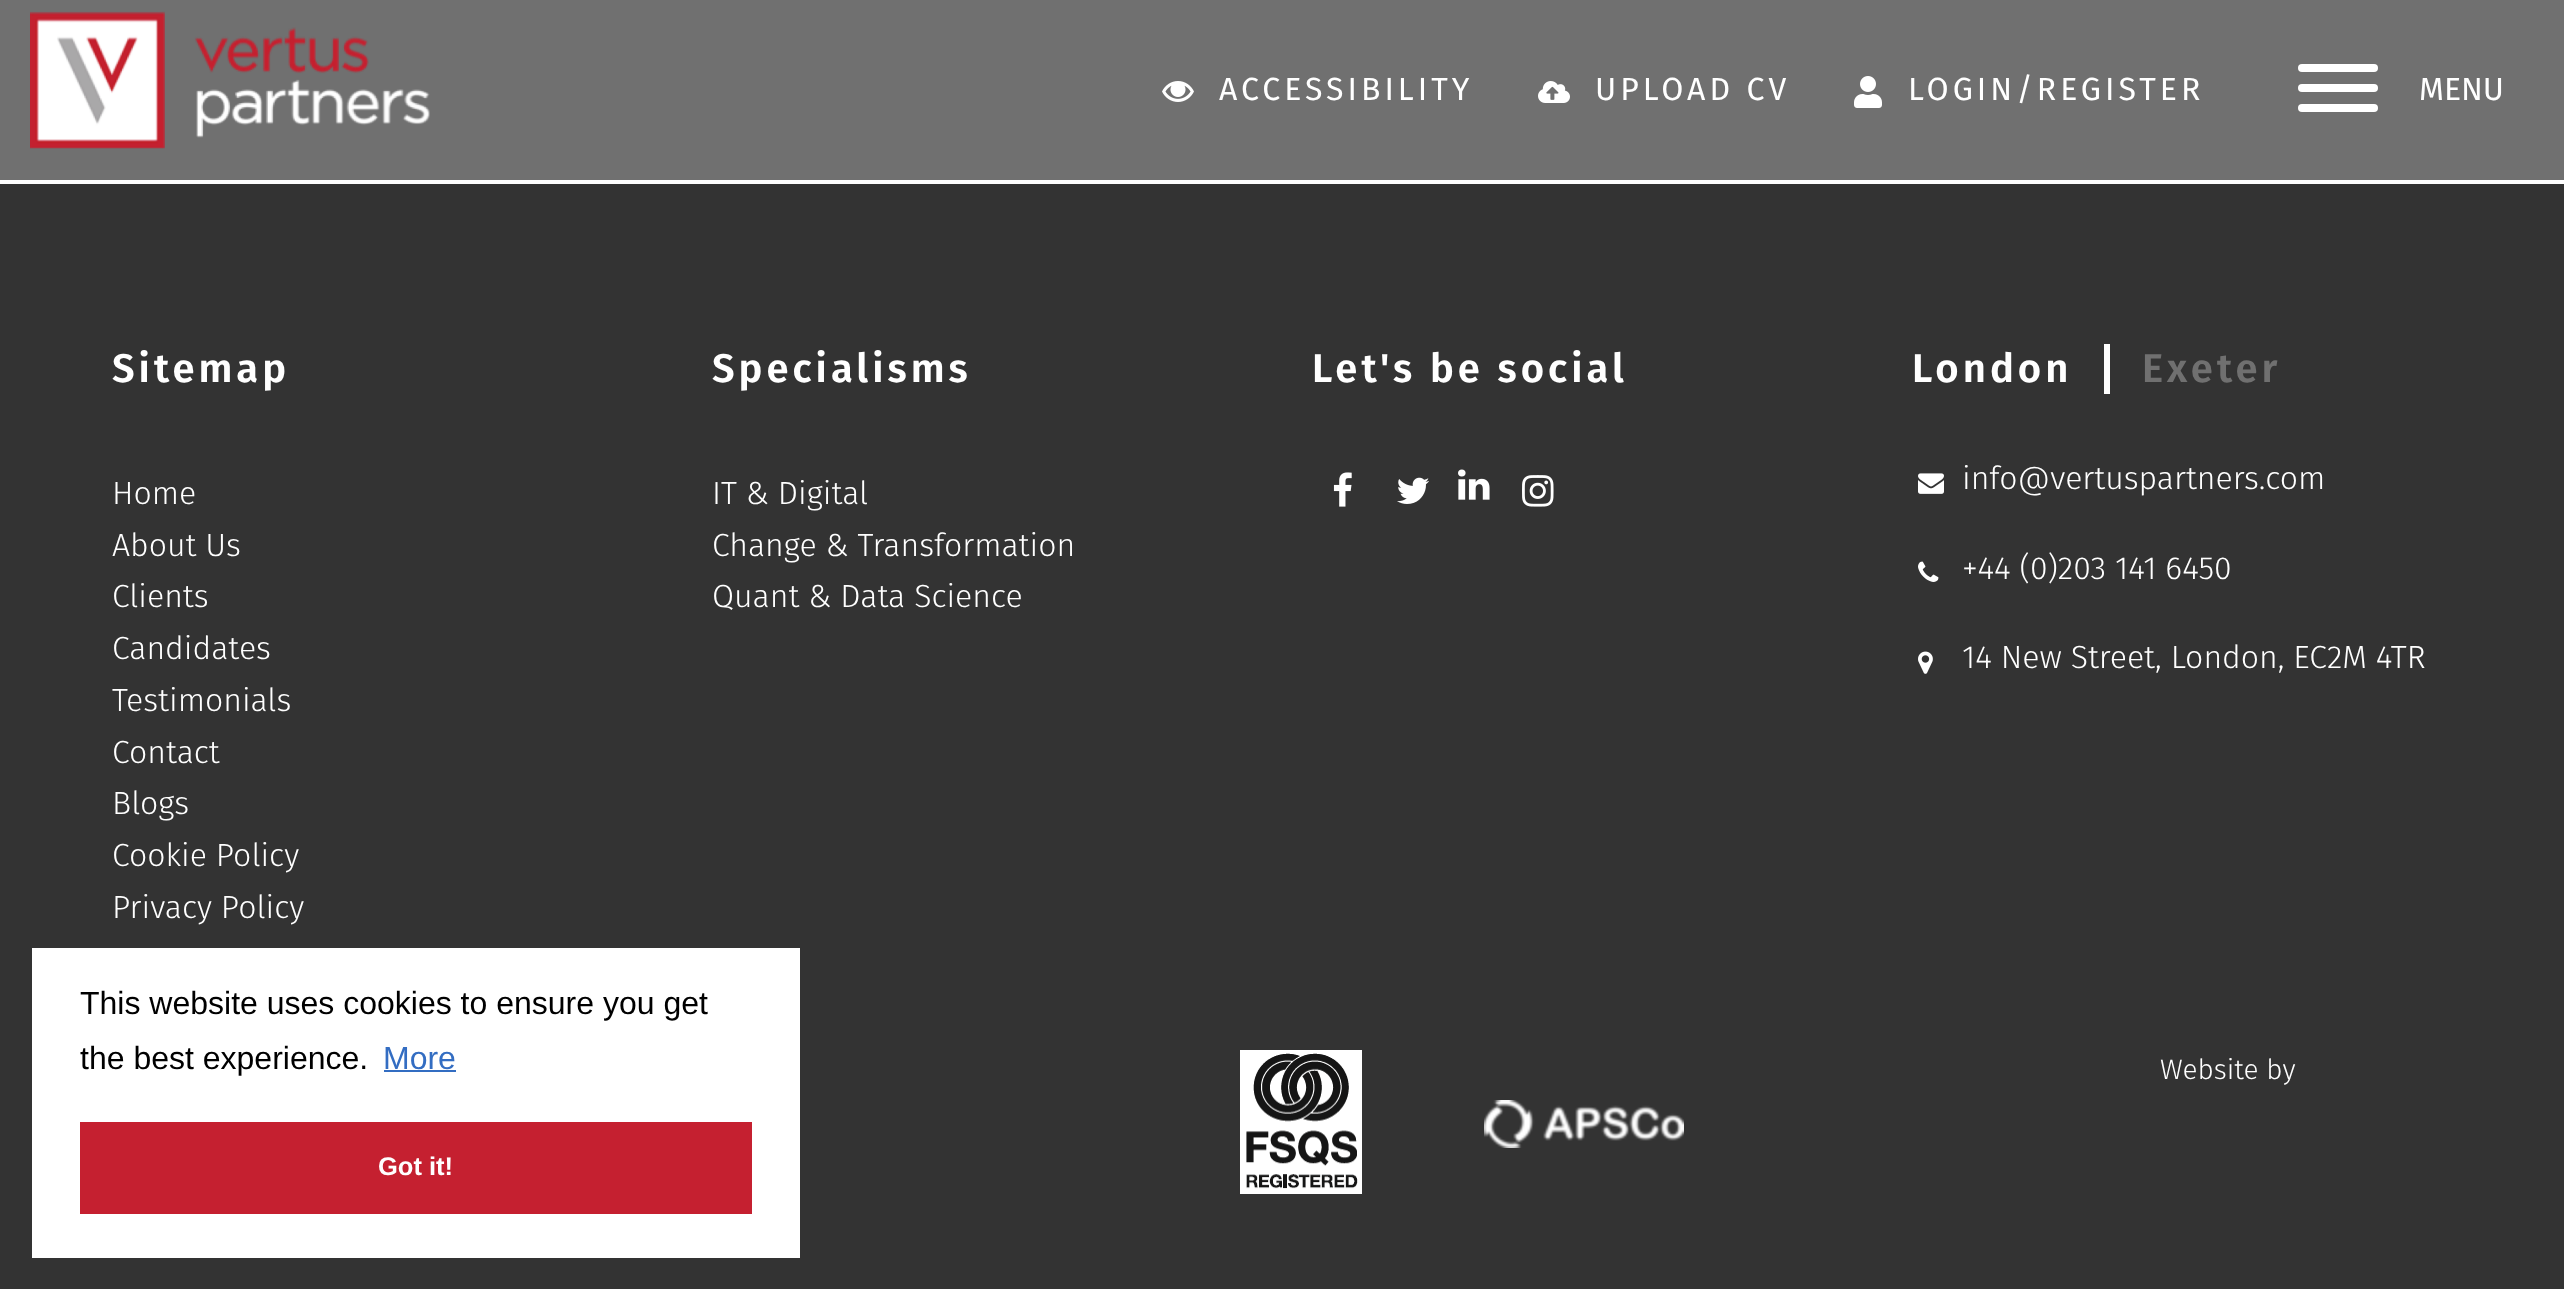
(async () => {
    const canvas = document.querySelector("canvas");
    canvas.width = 2564;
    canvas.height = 1289;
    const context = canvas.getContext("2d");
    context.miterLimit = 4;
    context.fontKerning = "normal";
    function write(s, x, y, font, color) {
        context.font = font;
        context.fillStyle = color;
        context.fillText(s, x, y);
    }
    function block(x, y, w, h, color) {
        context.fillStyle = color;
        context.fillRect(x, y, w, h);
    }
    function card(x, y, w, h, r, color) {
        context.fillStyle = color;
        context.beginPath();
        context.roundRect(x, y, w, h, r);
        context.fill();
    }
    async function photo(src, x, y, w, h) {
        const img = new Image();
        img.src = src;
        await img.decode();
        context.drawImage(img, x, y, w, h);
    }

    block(0, 0, 2564, 1289, "rgb(255, 255, 255)");
    block(0, 0, 2564, 180, "rgb(112, 112, 112)");
    await photo("media/1.png", 30, 11, 400, 138);
    await photo("media/2.png", 1162, 81, 32, 21);
    context.letterSpacing = "4px";
    write("ACCESSIBILITY", 1219, 100, "32px Fira Sans", "rgb(255, 255, 255)");
    await photo("media/3.png", 1538, 81, 32, 22);
    write("UPLOAD CV", 1595, 100, "32px Fira Sans", "rgb(255, 255, 255)");
    await photo("media/4.png", 1854, 76, 28, 32);
    write("LOGIN/REGISTER", 1908, 100, "32px Fira Sans", "rgb(255, 255, 255)");
    card(2298, 104, 80, 8, 4, "rgb(255, 255, 255)");
    card(2298, 64, 80, 8, 4, "rgb(255, 255, 255)");
    card(2298, 84, 80, 8, 4, "rgb(255, 255, 255)");
    context.letterSpacing = "0px";
    write("MENU", 2419, 100, "32px Fira Sans", "rgb(255, 255, 255)");
    block(0, 184, 2564, 1105, "rgb(51, 51, 51)");
    context.letterSpacing = "4px";
    write("Sitemap", 112, 382, "600 40px Fira Sans", "rgb(255, 255, 255)");
    context.letterSpacing = "0px";
    write("Home", 112, 504, "300 32px Fira Sans", "rgb(255, 255, 255)");
    write("About Us", 112, 556, "300 32px Fira Sans", "rgb(255, 255, 255)");
    write("Clients", 112, 607, "300 32px Fira Sans", "rgb(255, 255, 255)");
    write("Candidates", 112, 659, "300 32px Fira Sans", "rgb(255, 255, 255)");
    write("Testimonials", 112, 711, "300 32px Fira Sans", "rgb(255, 255, 255)");
    write("Contact", 112, 763, "300 32px Fira Sans", "rgb(255, 255, 255)");
    write("Blogs", 112, 814, "300 32px Fira Sans", "rgb(255, 255, 255)");
    write("Cookie Policy", 112, 866, "300 32px Fira Sans", "rgb(255, 255, 255)");
    write("Privacy Policy", 112, 918, "300 32px Fira Sans", "rgb(255, 255, 255)");
    context.letterSpacing = "4px";
    write("Specialisms", 712, 382, "600 40px Fira Sans", "rgb(255, 255, 255)");
    context.letterSpacing = "0px";
    write("IT & Digital", 712, 504, "300 32px Fira Sans", "rgb(255, 255, 255)");
    write("Change & Transformation", 712, 556, "300 32px Fira Sans", "rgb(255, 255, 255)");
    write("Quant & Data Science", 712, 607, "300 32px Fira Sans", "rgb(255, 255, 255)");
    context.letterSpacing = "4px";
    write("Let's be social", 1312, 382, "600 40px Fira Sans", "rgb(255, 255, 255)");
    await photo("media/5.png", 1333, 472, 19, 35);
    await photo("media/6.png", 1397, 477, 32, 27);
    await photo("media/7.png", 1458, 469, 32, 31);
    await photo("media/8.png", 1522, 475, 32, 32);
    block(2104, 344, 6, 50, "rgb(255, 255, 255)");
    write("London", 1912, 382, "600 40px Fira Sans", "rgb(255, 255, 255)");
    write("Exeter", 2142, 382, "600 40px Fira Sans", "rgb(112, 112, 112)");
    await photo("media/9.png", 1918, 473, 26, 21);
    context.letterSpacing = "0px";
    write("info@vertuspartners.com", 1962, 489, "300 32px Fira Sans", "rgb(255, 255, 255)");
    await photo("media/10.png", 1918, 561, 21, 21);
    write("+44 (0)203 141 6450", 1962, 579, "300 32px Fira Sans", "rgb(255, 255, 255)");
    await photo("media/11.png", 1918, 651, 15, 23);
    write("14 New Street, London, EC2M 4TR", 1962, 668, "300 32px Fira Sans", "rgb(255, 255, 255)");
    await photo("media/12.png", 1240, 1050, 122, 144);
    await photo("media/13.png", 1484, 1100, 200, 48);
    write("Website by", 2160, 1079, "300 28px Fira Sans", "rgb(255, 255, 255)");
    block(32, 948, 768, 310, "rgb(255, 255, 255)");
    write("This website uses cookies to ensure you get", 80, 1014, "32px Liberation Sans", "rgb(0, 0, 0)");
    write("the best experience.", 80, 1069, "32px Liberation Sans", "rgb(0, 0, 0)");
    write("More", 383, 1069, "32px Liberation Sans", "rgb(51, 109, 194)");
    block(384, 1070, 72, 2, "rgb(51, 109, 194)");
    block(80, 1122, 672, 92, "rgb(197, 32, 48)");
    write("Got it!", 378, 1175, "bold 25.5px Liberation Sans", "rgb(255, 255, 255)");
})();
